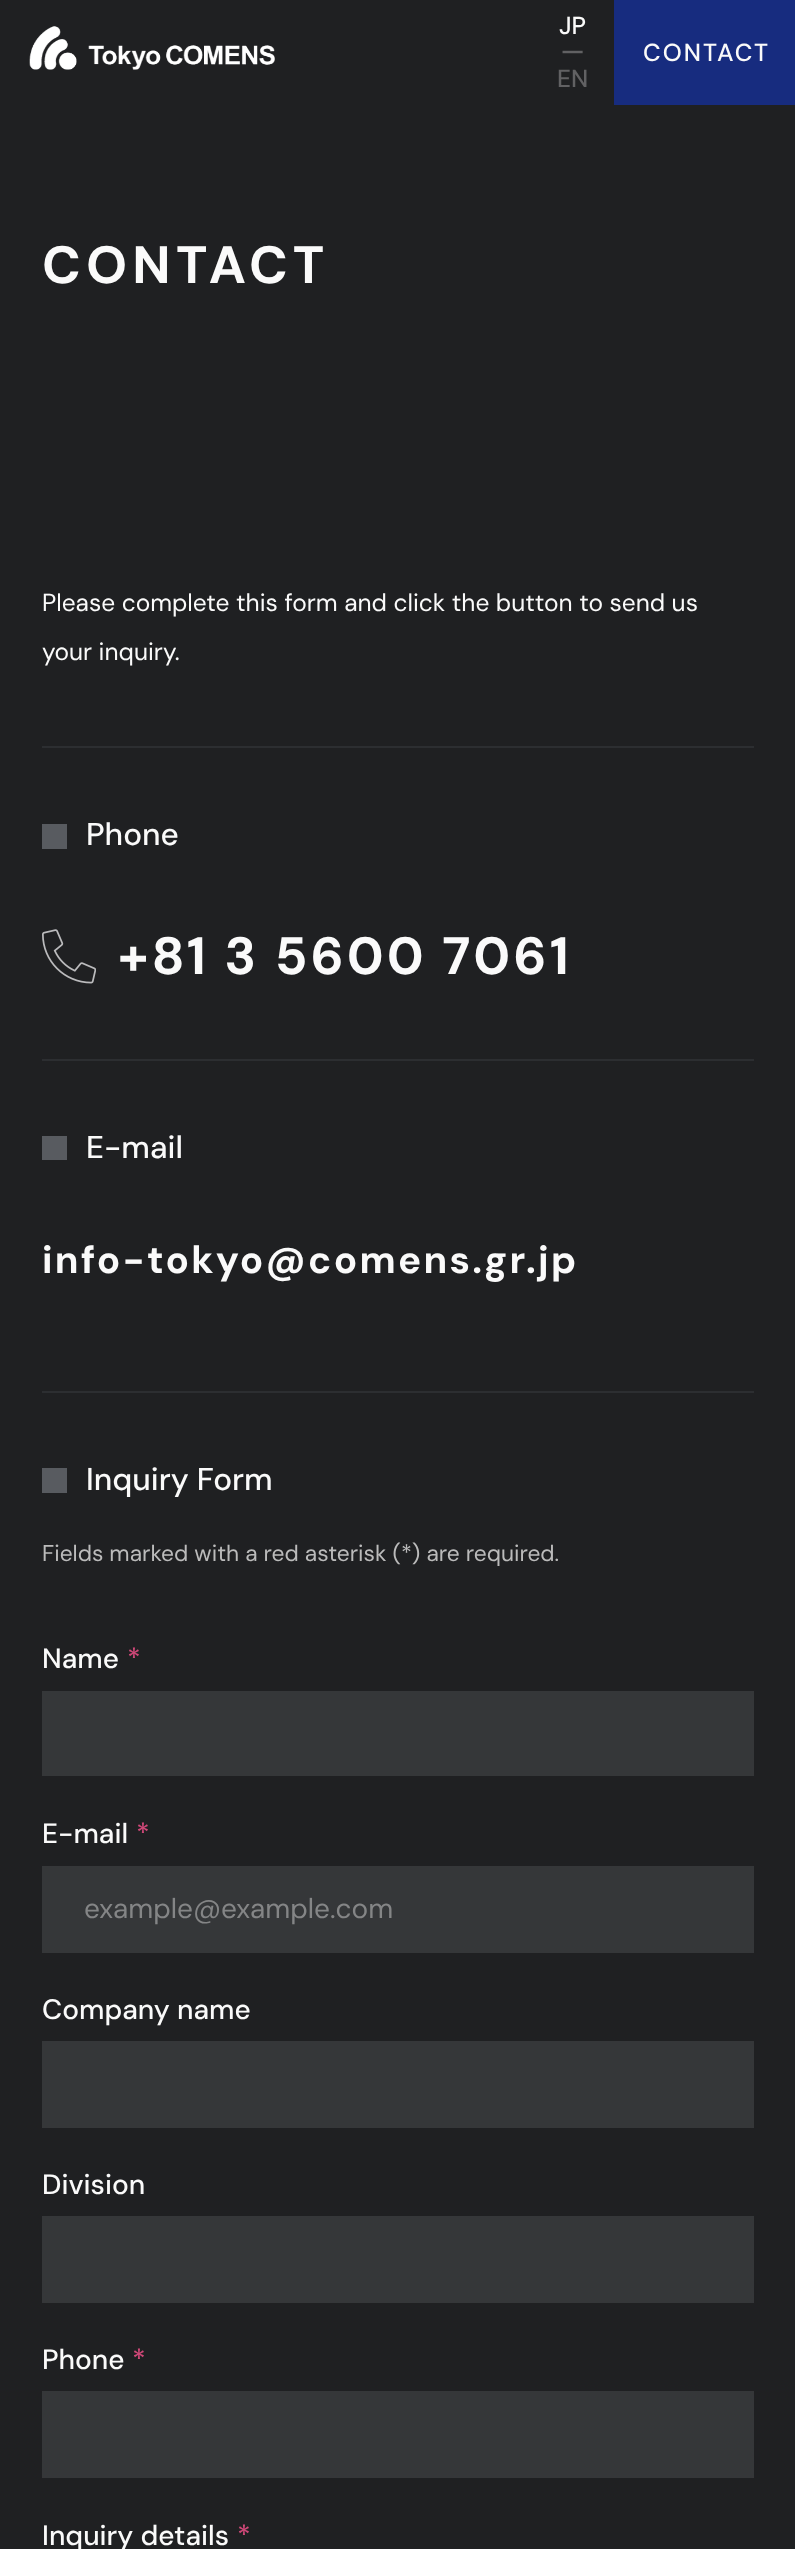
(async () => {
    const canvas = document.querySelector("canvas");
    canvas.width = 795;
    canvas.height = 2549;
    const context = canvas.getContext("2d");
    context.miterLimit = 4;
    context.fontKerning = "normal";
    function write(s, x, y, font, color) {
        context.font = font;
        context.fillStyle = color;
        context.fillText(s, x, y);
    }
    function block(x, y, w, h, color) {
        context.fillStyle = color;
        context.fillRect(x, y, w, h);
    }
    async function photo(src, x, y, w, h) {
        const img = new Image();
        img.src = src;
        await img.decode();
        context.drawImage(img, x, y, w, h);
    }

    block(0, 0, 795, 2549, "rgb(31, 32, 34)");
    await photo("media/1.png", 29, 26, 246, 44);
    write("JP", 559, 34, "500 24.5px DM Sans", "rgb(250, 250, 250)");
    context.fillStyle = "rgb(97, 97, 99)";
    context.save();
    context.translate(565, 49);
    context.rotate(90 * Math.PI / 180);
    context.fillText("|", 0, 0);
    context.restore();
    write("EN", 557, 87, "500 24.5px DM Sans", "rgb(97, 97, 99)");
    block(614, 0, 181, 105, "rgb(23, 44, 127)");
    context.letterSpacing = "2px";
    write("CONTACT", 643, 61, "500 24.5px DM Sans", "rgb(250, 250, 250)");
    context.letterSpacing = "5.25px";
    write("CONTACT", 42, 283, "bold 52.5px DM Sans", "rgb(250, 250, 250)");
    context.letterSpacing = "0px";
    write("Please complete this form and click the button to send us", 42, 611, "24.5px DM Sans", "rgb(250, 250, 250)");
    write("your inquiry.", 42, 660, "24.5px DM Sans", "rgb(250, 250, 250)");
    block(42, 746, 712, 2, "rgb(44, 46, 49)");
    block(42, 824, 25, 25, "rgb(88, 91, 96)");
    write("Phone", 86, 845, "500 31.5px DM Sans", "rgb(250, 250, 250)");
    await photo("media/2.png", 42, 929, 54, 55);
    context.letterSpacing = "3.1px";
    write("+81 3 5600 7061", 118, 974, "bold 52.5px DM Sans", "rgb(250, 250, 250)");
    block(42, 1059, 712, 2, "rgb(44, 46, 49)");
    block(42, 1136, 25, 24, "rgb(88, 91, 96)");
    context.letterSpacing = "0px";
    write("E-mail", 86, 1158, "500 31.5px DM Sans", "rgb(250, 250, 250)");
    context.letterSpacing = "2.3px";
    write("info-tokyo@comens.gr.jp", 42, 1273, "bold 38.5px DM Sans", "rgb(250, 250, 250)");
    block(42, 1391, 712, 2, "rgb(44, 46, 49)");
    block(42, 1468, 25, 25, "rgb(88, 91, 96)");
    context.letterSpacing = "0px";
    write("Inquiry Form", 86, 1490, "500 31.5px DM Sans", "rgb(250, 250, 250)");
    write("Fields marked with a red asterisk (*) are required.", 42, 1561, "22.75px DM Sans", "rgb(187, 187, 187)");
    write("Name", 42, 1668, "500 28px DM Sans", "rgb(250, 250, 250)");
    write("*", 127, 1668, "500 28px DM Sans", "rgb(207, 72, 120)");
    block(42, 1691, 712, 85, "rgb(53, 55, 57)");
    write("E-mail", 42, 1843, "500 28px DM Sans", "rgb(250, 250, 250)");
    write("*", 136, 1843, "500 28px DM Sans", "rgb(207, 72, 120)");
    block(42, 1866, 712, 87, "rgb(53, 55, 57)");
    write("example@example.com", 84, 1918, "28px DM Sans", "rgb(132, 133, 134)");
    write("Company name", 42, 2019, "500 28px DM Sans", "rgb(250, 250, 250)");
    block(42, 2041, 712, 87, "rgb(53, 55, 57)");
    write("Division", 42, 2194, "500 28px DM Sans", "rgb(250, 250, 250)");
    block(42, 2216, 712, 87, "rgb(53, 55, 57)");
    write("Phone", 42, 2369, "500 28px DM Sans", "rgb(250, 250, 250)");
    write("*", 132, 2369, "500 28px DM Sans", "rgb(207, 72, 120)");
    block(42, 2391, 712, 87, "rgb(53, 55, 57)");
    write("Inquiry details", 42, 2545, "500 28px DM Sans", "rgb(250, 250, 250)");
    write("*", 237, 2545, "500 28px DM Sans", "rgb(207, 72, 120)");
})();
